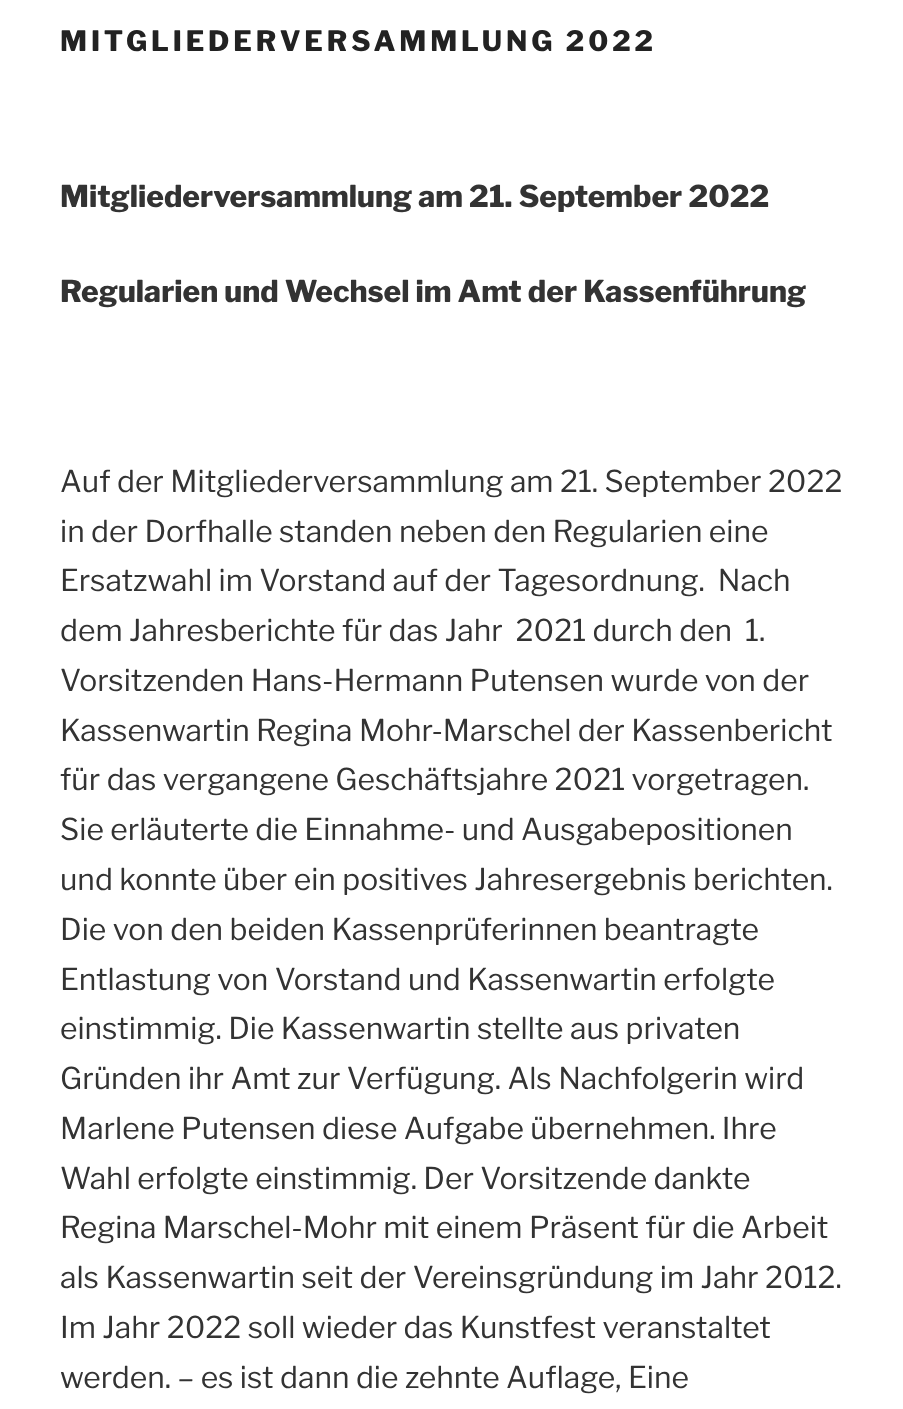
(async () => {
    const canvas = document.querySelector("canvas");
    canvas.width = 903;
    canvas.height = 1409;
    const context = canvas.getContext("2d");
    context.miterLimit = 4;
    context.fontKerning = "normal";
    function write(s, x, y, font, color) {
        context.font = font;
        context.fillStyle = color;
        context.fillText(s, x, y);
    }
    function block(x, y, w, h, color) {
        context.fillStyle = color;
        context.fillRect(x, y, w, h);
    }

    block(0, 0, 903, 1409, "rgb(255, 255, 255)");
    context.letterSpacing = "3.9px";
    write("MITGLIEDERVERSAMMLUNG 2022", 60, 51, "100 28px Libre Franklin", "rgb(34, 34, 34)");
    context.letterSpacing = "0px";
    write("Mitgliederversammlung am 21. September 2022", 60, 207, "100 30px Libre Franklin", "rgb(51, 51, 51)");
    write("Regularien und Wechsel im Amt der Kassenführung", 60, 302, "100 30px Libre Franklin", "rgb(51, 51, 51)");
    write("Auf der Mitgliederversammlung am 21. September 2022", 60, 492, "100 30px 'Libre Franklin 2'", "rgb(51, 51, 51)");
    write("in der Dorfhalle standen neben den Regularien eine", 60, 542, "100 30px 'Libre Franklin 2'", "rgb(51, 51, 51)");
    write("Ersatzwahl im Vorstand auf der Tagesordnung.  Nach", 60, 591, "100 30px 'Libre Franklin 2'", "rgb(51, 51, 51)");
    write("dem Jahresberichte für das Jahr  2021 durch den  1.", 60, 641, "100 30px 'Libre Franklin 2'", "rgb(51, 51, 51)");
    write("Vorsitzenden Hans-Hermann Putensen wurde von der", 60, 691, "100 30px 'Libre Franklin 2'", "rgb(51, 51, 51)");
    write("Kassenwartin Regina Mohr-Marschel der Kassenbericht", 60, 741, "100 30px 'Libre Franklin 2'", "rgb(51, 51, 51)");
    write("für das vergangene Geschäftsjahre 2021 vorgetragen.", 60, 790, "100 30px 'Libre Franklin 2'", "rgb(51, 51, 51)");
    write("Sie erläuterte die Einnahme- und Ausgabepositionen", 60, 840, "100 30px 'Libre Franklin 2'", "rgb(51, 51, 51)");
    write("und konnte über ein positives Jahresergebnis berichten.", 60, 890, "100 30px 'Libre Franklin 2'", "rgb(51, 51, 51)");
    write("Die von den beiden Kassenprüferinnen beantragte", 60, 940, "100 30px 'Libre Franklin 2'", "rgb(51, 51, 51)");
    write("Entlastung von Vorstand und Kassenwartin erfolgte", 60, 990, "100 30px 'Libre Franklin 2'", "rgb(51, 51, 51)");
    write("einstimmig. Die Kassenwartin stellte aus privaten", 60, 1039, "100 30px 'Libre Franklin 2'", "rgb(51, 51, 51)");
    write("Gründen ihr Amt zur Verfügung. Als Nachfolgerin wird", 60, 1089, "100 30px 'Libre Franklin 2'", "rgb(51, 51, 51)");
    write("Marlene Putensen diese Aufgabe übernehmen. Ihre", 60, 1139, "100 30px 'Libre Franklin 2'", "rgb(51, 51, 51)");
    write("Wahl erfolgte einstimmig. Der Vorsitzende dankte", 60, 1189, "100 30px 'Libre Franklin 2'", "rgb(51, 51, 51)");
    write("Regina Marschel-Mohr mit einem Präsent für die Arbeit", 60, 1238, "100 30px 'Libre Franklin 2'", "rgb(51, 51, 51)");
    write("als Kassenwartin seit der Vereinsgründung im Jahr 2012.", 60, 1288, "100 30px 'Libre Franklin 2'", "rgb(51, 51, 51)");
    write("Im Jahr 2022 soll wieder das Kunstfest veranstaltet", 60, 1338, "100 30px 'Libre Franklin 2'", "rgb(51, 51, 51)");
    write("werden. – es ist dann die zehnte Auflage, Eine", 60, 1388, "100 30px 'Libre Franklin 2'", "rgb(51, 51, 51)");
})();
